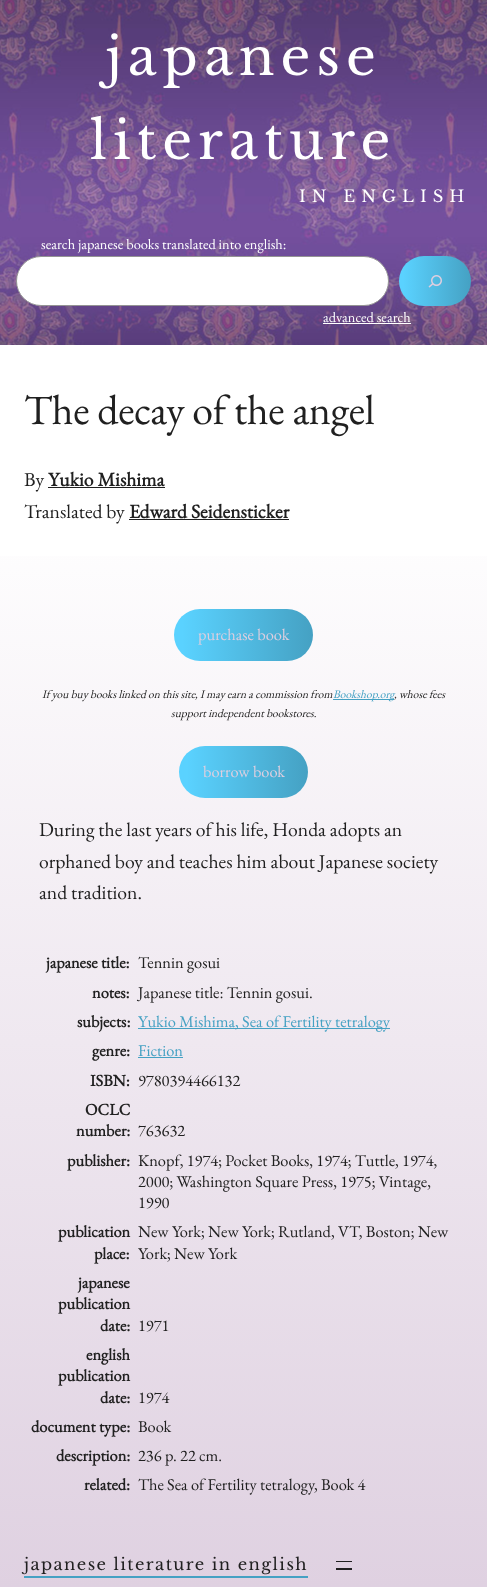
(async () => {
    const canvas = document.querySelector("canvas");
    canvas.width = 487;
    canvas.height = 1587;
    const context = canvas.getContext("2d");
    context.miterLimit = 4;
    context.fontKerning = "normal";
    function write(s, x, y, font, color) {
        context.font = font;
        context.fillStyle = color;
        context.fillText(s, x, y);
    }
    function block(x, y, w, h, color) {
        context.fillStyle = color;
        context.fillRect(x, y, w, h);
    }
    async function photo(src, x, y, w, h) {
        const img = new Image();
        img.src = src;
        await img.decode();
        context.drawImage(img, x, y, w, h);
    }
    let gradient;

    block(0, 0, 487, 1587, "rgb(255, 255, 255)");
    gradient = context.createLinearGradient(243, 0, 244, 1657);
    gradient.addColorStop(0, "rgb(255, 255, 255)");
    gradient.addColorStop(0.3, "rgb(255, 255, 255)");
    gradient.addColorStop(1, "rgb(221, 206, 223)");
    context.fillStyle = gradient;
    context.fillRect(0, 556, 487, 1031);
    await photo("media/1.png", 0, 0, 487, 345);
    context.letterSpacing = "6px";
    write("japanese", 106, 75, "52px Libre Baskerville", "rgb(255, 255, 255)");
    write("literature", 90, 159, "52px Libre Baskerville", "rgb(255, 255, 255)");
    write("IN ENGLISH", 299, 202, "16.4px Libre Baskerville", "rgb(255, 255, 255)");
    context.letterSpacing = "0px";
    write("search japanese books translated into english:", 41, 249, "14.4px EB Garamond", "rgb(255, 255, 255)");
    context.beginPath();
    context.roundRect(16.5, 256.5, 372, 49, 24.5);
    context.fill();
    context.strokeStyle = "rgb(148, 148, 148)";
    context.stroke();
    gradient = context.createLinearGradient(399, 281, 471, 281);
    gradient.addColorStop(0.06, "rgb(90, 210, 255)");
    gradient.addColorStop(1, "rgb(69, 161, 195)");
    context.fillStyle = gradient;
    context.beginPath();
    context.roundRect(399, 256, 72, 50, 25);
    context.fill();
    await photo("media/2.png", 428, 275, 14, 13);
    write("advanced search", 323, 322, "14.4px EB Garamond", "rgb(255, 255, 255)");
    block(323, 323, 88, 1, "rgb(255, 255, 255)");
    context.letterSpacing = "-0.3px";
    write("The decay of the angel", 24, 424, "42px EB Garamond", "rgb(32, 32, 32)");
    context.letterSpacing = "0px";
    write("By", 24, 486, "19.65px EB Garamond", "rgb(32, 32, 32)");
    write("Yukio Mishima", 48, 486, "bold 19.65px EB Garamond", "rgb(32, 32, 32)");
    block(48, 487, 117, 1, "rgb(32, 32, 32)");
    write("Translated by", 24, 518, "19.65px EB Garamond", "rgb(32, 32, 32)");
    write("Edward Seidensticker", 129, 518, "bold 19.65px EB Garamond", "rgb(32, 32, 32)");
    block(129, 519, 160, 1, "rgb(32, 32, 32)");
    gradient = context.createLinearGradient(174, 635, 313, 635);
    gradient.addColorStop(0.06, "rgb(90, 210, 255)");
    gradient.addColorStop(1, "rgb(69, 161, 195)");
    context.fillStyle = gradient;
    context.beginPath();
    context.roundRect(174, 609, 139, 52, 26);
    context.fill();
    write("purchase book", 198, 640, "16.4px EB Garamond", "rgb(221, 206, 223)");
    write("If you buy books linked on this site, I may earn a commission from", 42, 698, "italic 11.5px EB Garamond", "rgb(32, 32, 32)");
    block(333, 699, 61, 1, "rgb(69, 161, 195)");
    write("Bookshop.org", 333, 698, "italic 11.5px EB Garamond", "rgb(69, 161, 195)");
    write(", whose fees", 394, 698, "italic 11.5px EB Garamond", "rgb(32, 32, 32)");
    write("support independent bookstores.", 171, 717, "italic 11.5px EB Garamond", "rgb(32, 32, 32)");
    gradient = context.createLinearGradient(179, 772, 308, 772);
    gradient.addColorStop(0.06, "rgb(90, 210, 255)");
    gradient.addColorStop(1, "rgb(69, 161, 195)");
    context.fillStyle = gradient;
    context.beginPath();
    context.roundRect(179, 746, 129, 52, 26);
    context.fill();
    write("borrow book", 203, 777, "16.4px EB Garamond", "rgb(221, 206, 223)");
    write("During the last years of his life, Honda adopts an", 39, 836, "19.65px EB Garamond", "rgb(32, 32, 32)");
    write("orphaned boy and teaches him about Japanese society", 39, 868, "19.65px EB Garamond", "rgb(32, 32, 32)");
    write("and tradition.", 39, 899, "19.65px EB Garamond", "rgb(32, 32, 32)");
    write("japanese title:", 46, 968, "bold 16.4px EB Garamond", "rgb(32, 32, 32)");
    write("Tennin gosui", 138, 968, "16.4px EB Garamond", "rgb(32, 32, 32)");
    write("notes:", 92, 998, "bold 16.4px EB Garamond", "rgb(32, 32, 32)");
    write("Japanese title: Tennin gosui.", 138, 998, "16.4px EB Garamond", "rgb(32, 32, 32)");
    write("subjects:", 77, 1027, "bold 16.4px EB Garamond", "rgb(32, 32, 32)");
    block(138, 1028, 252, 1, "rgb(69, 161, 195)");
    write("Yukio Mishima, Sea of Fertility tetralogy", 138, 1027, "16.4px EB Garamond", "rgb(69, 161, 195)");
    write("genre:", 92, 1056, "bold 16.4px EB Garamond", "rgb(32, 32, 32)");
    write("Fiction", 138, 1056, "16.4px EB Garamond", "rgb(69, 161, 195)");
    block(138, 1057, 45, 1, "rgb(69, 161, 195)");
    write("ISBN:", 90, 1086, "bold 16.4px EB Garamond", "rgb(32, 32, 32)");
    write("9780394466132", 138, 1086, "16.4px EB Garamond", "rgb(32, 32, 32)");
    write("OCLC", 85, 1115, "bold 16.4px EB Garamond", "rgb(32, 32, 32)");
    write("number:", 76, 1136, "bold 16.4px EB Garamond", "rgb(32, 32, 32)");
    write("763632", 138, 1136, "16.4px EB Garamond", "rgb(32, 32, 32)");
    write("publisher:", 67, 1166, "bold 16.4px EB Garamond", "rgb(32, 32, 32)");
    write("Knopf, 1974; Pocket Books, 1974; Tuttle, 1974,", 138, 1166, "16.4px EB Garamond", "rgb(32, 32, 32)");
    write("2000; Washington Square Press, 1975; Vintage,", 138, 1187, "16.4px EB Garamond", "rgb(32, 32, 32)");
    write("1990", 138, 1208, "16.4px EB Garamond", "rgb(32, 32, 32)");
    write("publication", 58, 1237, "bold 16.4px EB Garamond", "rgb(32, 32, 32)");
    write("place:", 94, 1259, "bold 16.4px EB Garamond", "rgb(32, 32, 32)");
    write("New York; New York; Rutland, VT, Boston; New", 138, 1237, "16.4px EB Garamond", "rgb(32, 32, 32)");
    write("York; New York", 138, 1259, "16.4px EB Garamond", "rgb(32, 32, 32)");
    write("japanese", 78, 1288, "bold 16.4px EB Garamond", "rgb(32, 32, 32)");
    write("publication", 58, 1309, "bold 16.4px EB Garamond", "rgb(32, 32, 32)");
    write("date:", 100, 1331, "bold 16.4px EB Garamond", "rgb(32, 32, 32)");
    write("1971", 138, 1331, "16.4px EB Garamond", "rgb(32, 32, 32)");
    write("english", 86, 1360, "bold 16.4px EB Garamond", "rgb(32, 32, 32)");
    write("publication", 58, 1381, "bold 16.4px EB Garamond", "rgb(32, 32, 32)");
    write("date:", 100, 1403, "bold 16.4px EB Garamond", "rgb(32, 32, 32)");
    write("1974", 138, 1403, "16.4px EB Garamond", "rgb(32, 32, 32)");
    write("document type:", 31, 1432, "bold 16.4px EB Garamond", "rgb(32, 32, 32)");
    write("Book", 138, 1432, "16.4px EB Garamond", "rgb(32, 32, 32)");
    write("description:", 56, 1461, "bold 16.4px EB Garamond", "rgb(32, 32, 32)");
    write("236 p. 22 cm.", 138, 1461, "16.4px EB Garamond", "rgb(32, 32, 32)");
    write("related:", 84, 1490, "bold 16.4px EB Garamond", "rgb(32, 32, 32)");
    write("The Sea of Fertility tetralogy, Book 4", 138, 1490, "16.4px EB Garamond", "rgb(32, 32, 32)");
    block(24, 1576, 284, 2, "rgb(69, 161, 195)");
    context.letterSpacing = "1.45px";
    write("japanese literature in english", 24, 1570, "16.4px Libre Baskerville", "rgb(32, 32, 32)");
    block(336, 1561, 16, 1, "rgb(32, 32, 32)");
    block(336, 1568, 16, 2, "rgb(32, 32, 32)");
})();
